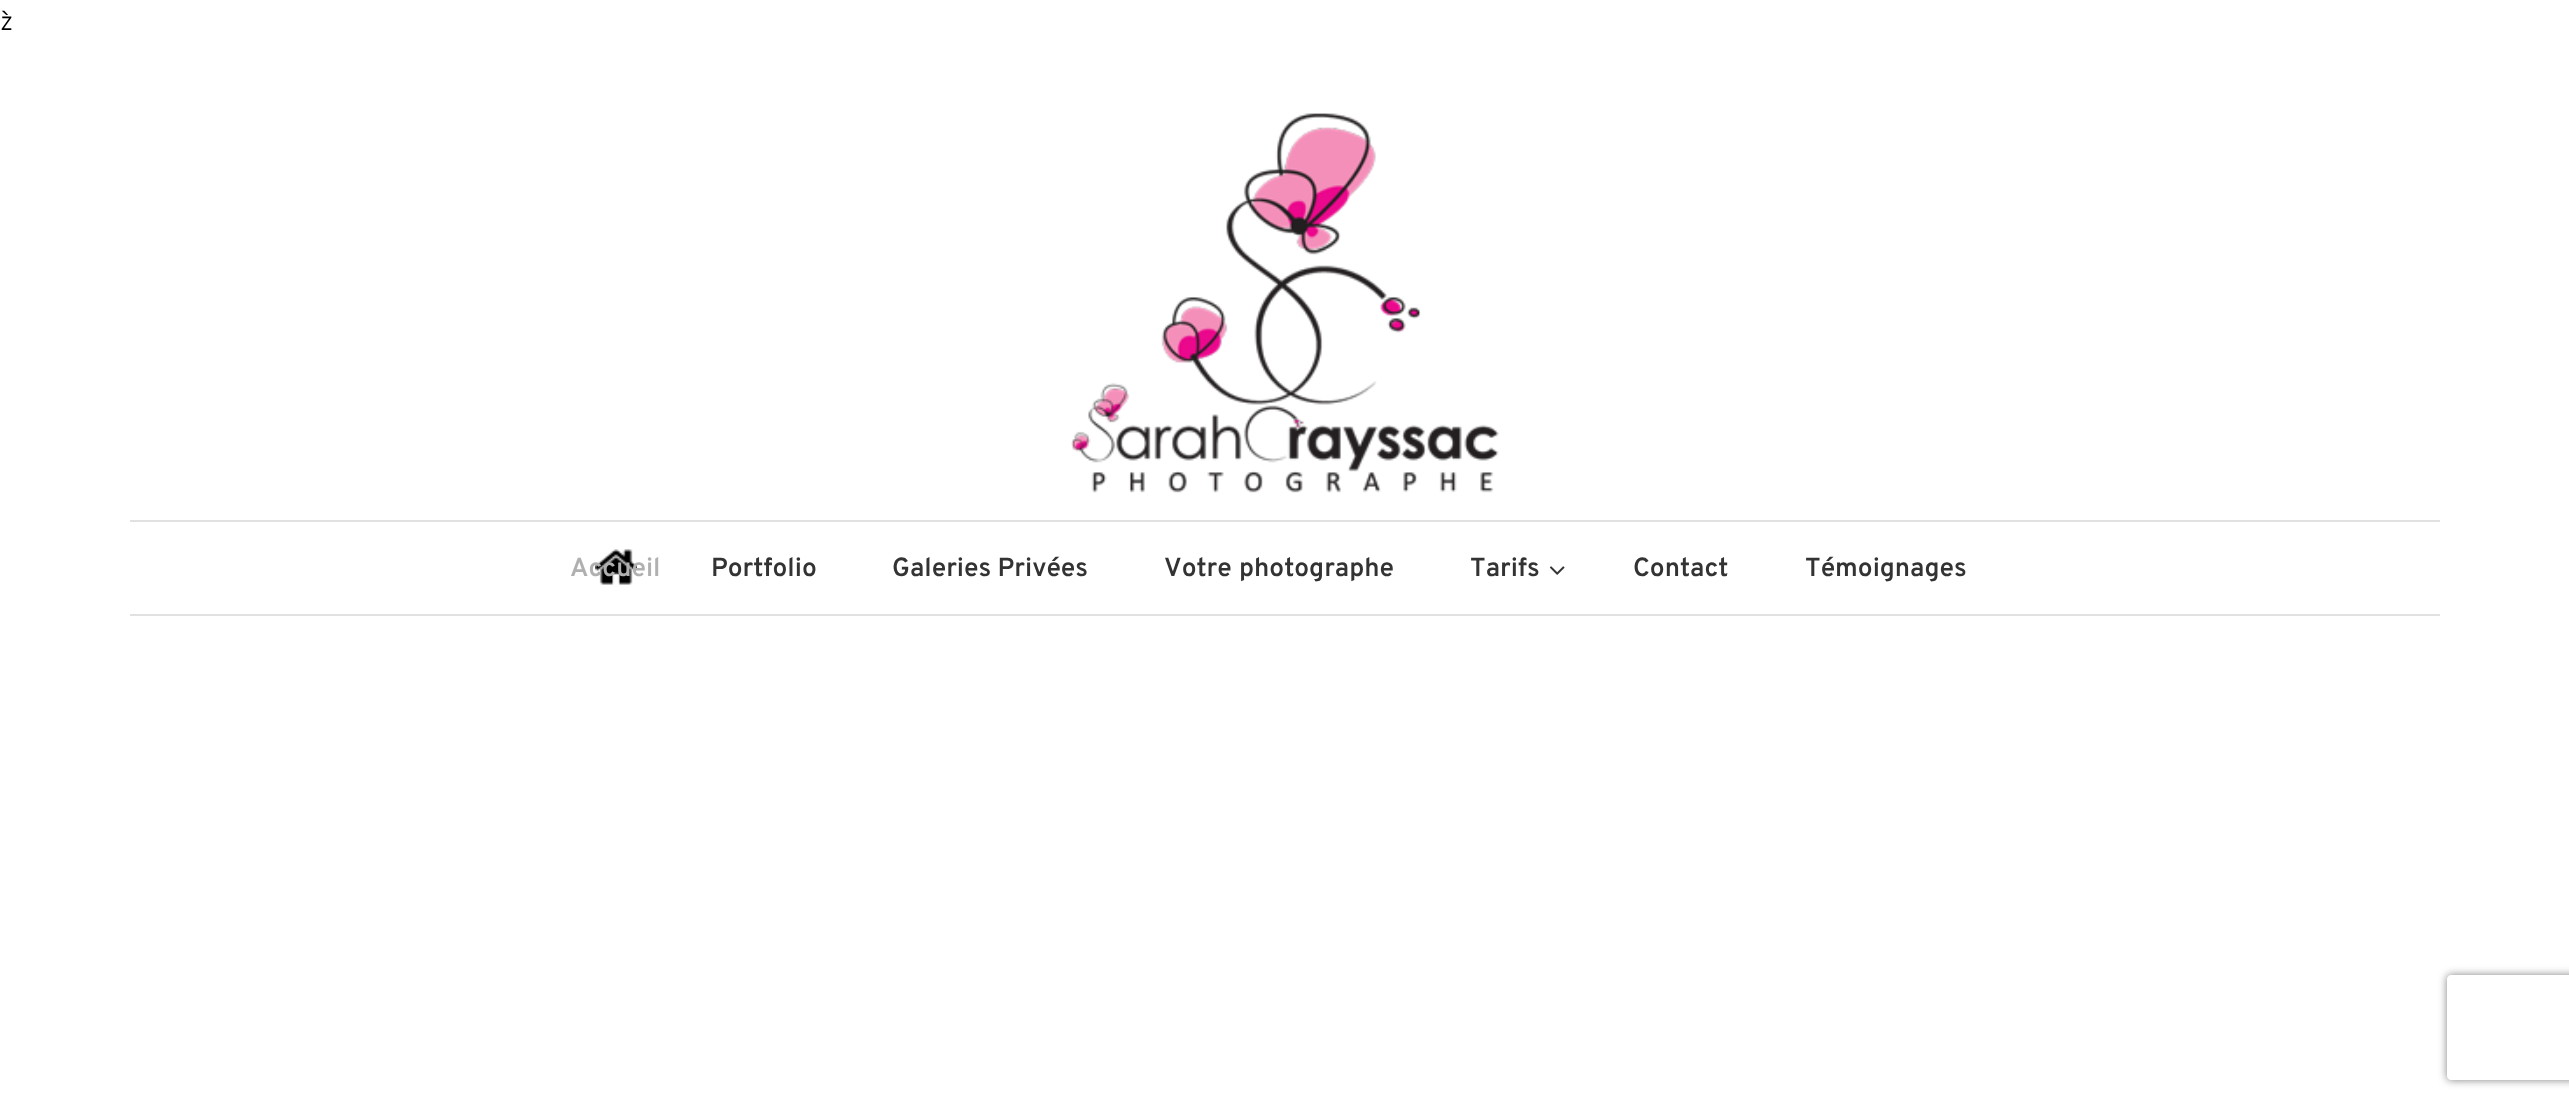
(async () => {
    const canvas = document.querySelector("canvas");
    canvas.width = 2569;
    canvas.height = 1104;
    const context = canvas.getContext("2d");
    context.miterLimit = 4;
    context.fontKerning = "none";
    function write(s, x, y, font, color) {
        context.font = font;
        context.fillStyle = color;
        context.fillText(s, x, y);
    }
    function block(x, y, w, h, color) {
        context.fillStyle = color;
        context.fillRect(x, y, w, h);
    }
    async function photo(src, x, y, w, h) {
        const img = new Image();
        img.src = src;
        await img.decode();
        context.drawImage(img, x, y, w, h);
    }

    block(0, 0, 2569, 1104, "rgb(255, 255, 255)");
    write("z`", 0, 30, "300 26.25px Overpass", "rgb(0, 0, 0)");
    await photo("media/1.png", 1071, 113, 428, 380);
    block(130, 520, 2310, 2, "rgb(225, 225, 225)");
    block(130, 614, 2310, 2, "rgb(225, 225, 225)");
    await photo("media/2.png", 595, 549, 42, 36);
    write("Accueil", 570, 576, "600 26.25px Overpass", "rgb(176, 176, 176)");
    write("Portfolio", 711, 576, "600 26.25px Overpass", "rgb(51, 51, 51)");
    write("Galeries Privées", 892, 576, "600 26.25px Overpass", "rgb(51, 51, 51)");
    write("Votre", 1164, 576, "600 26.25px Overpass", "rgb(51, 51, 51)");
    write("photographe", 1239, 576, "600 26.25px Overpass", "rgb(51, 51, 51)");
    write("Tarifs", 1470, 576, "600 26.25px Overpass", "rgb(51, 51, 51)");
    await photo("media/3.png", 1549, 566, 16, 9);
    write("Contact", 1633, 576, "600 26.25px Overpass", "rgb(51, 51, 51)");
    write("Témoignages", 1805, 576, "600 26.25px Overpass", "rgb(51, 51, 51)");
    context.save();
    context.beginPath();
    context.moveTo(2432, 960);
    context.lineTo(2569, 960);
    context.lineTo(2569, 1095);
    context.lineTo(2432, 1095);
    context.closePath();
    context.moveTo(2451, 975);
    context.lineTo(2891, 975);
    context.bezierCurveTo(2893, 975, 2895, 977, 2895, 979);
    context.lineTo(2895, 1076);
    context.bezierCurveTo(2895, 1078, 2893, 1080, 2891, 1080);
    context.lineTo(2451, 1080);
    context.bezierCurveTo(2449, 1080, 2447, 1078, 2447, 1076);
    context.lineTo(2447, 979);
    context.bezierCurveTo(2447, 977, 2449, 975, 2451, 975);
    context.closePath();
    context.clip("evenodd");
    context.fillStyle = "rgb(128, 128, 128)";
    context.filter = "blur(4.5px)";
    context.beginPath();
    context.roundRect(2447, 975, 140, 105, 4);
    context.fill();
    context.filter = "none";
    context.restore();
})();
